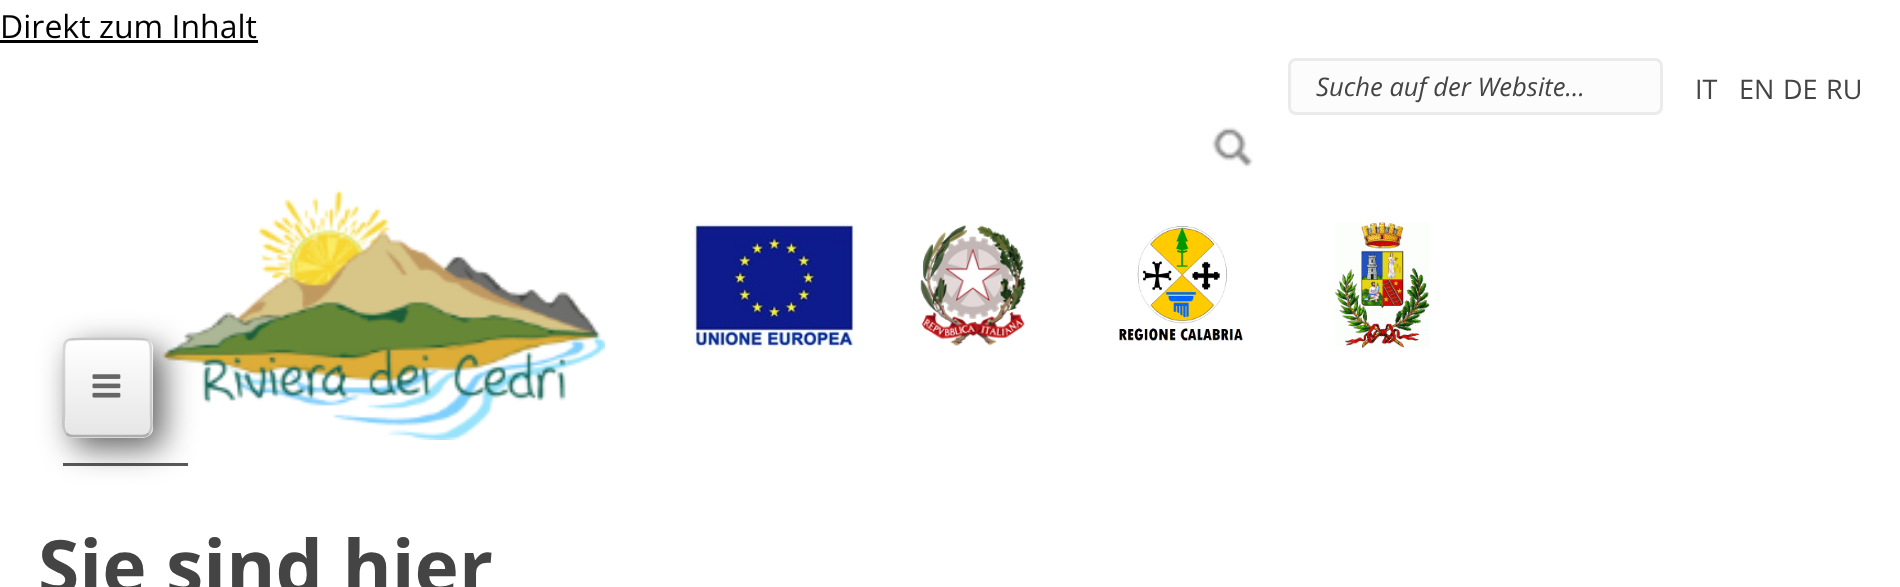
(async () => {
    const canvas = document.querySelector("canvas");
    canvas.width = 1900;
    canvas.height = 587;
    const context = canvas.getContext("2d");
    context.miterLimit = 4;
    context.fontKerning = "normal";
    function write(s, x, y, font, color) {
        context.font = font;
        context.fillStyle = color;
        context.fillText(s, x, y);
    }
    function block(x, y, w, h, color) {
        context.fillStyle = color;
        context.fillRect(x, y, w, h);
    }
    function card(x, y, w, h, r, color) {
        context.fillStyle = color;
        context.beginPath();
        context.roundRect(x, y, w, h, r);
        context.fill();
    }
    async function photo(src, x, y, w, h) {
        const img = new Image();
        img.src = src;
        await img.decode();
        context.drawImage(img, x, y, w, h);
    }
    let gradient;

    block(0, 0, 1900, 587, "rgb(255, 255, 255)");
    write("Direkt zum Inhalt", 0, 38, "32px Open Sans", "rgb(2, 2, 2)");
    block(0, 40, 258, 3, "rgb(2, 2, 2)");
    context.fillStyle = "rgb(252, 252, 252)";
    context.beginPath();
    context.roundRect(1289.5, 59.5, 372, 54, 6.5);
    context.fill();
    context.strokeStyle = "rgb(235, 235, 235)";
    context.lineWidth = 3;
    context.stroke();
    write("Suche auf der Website...", 1316, 96, "italic 25.6px Open Sans", "rgb(68, 68, 68)");
    await photo("media/1.png", 1212, 127, 41, 41);
    write("IT", 1695, 99, "27px Open Sans", "rgb(68, 68, 68)");
    write("EN", 1739, 99, "27px Open Sans", "rgb(68, 68, 68)");
    write("DE", 1783, 99, "27px Open Sans", "rgb(68, 68, 68)");
    write("RU", 1826, 99, "27px Open Sans", "rgb(68, 68, 68)");
    block(63, 463, 125, 3, "rgb(89, 89, 89)");
    await photo("media/3.png", 162, 190, 443, 250);
    context.fillStyle = "rgba(18, 18, 18, 0.67)";
    context.filter = "blur(16px)";
    context.beginPath();
    context.roundRect(73, 348, 90, 100, 10);
    context.fill();
    context.filter = "none";
    card(63, 338, 90, 100, 10, "rgb(232, 232, 232)");
    context.save();
    context.beginPath();
    context.roundRect(63, 338, 90, 100, 10);
    context.clip();
    gradient = context.createLinearGradient(108, 340, 108, 435);
    gradient.addColorStop(0, "rgb(255, 255, 255)");
    gradient.addColorStop(1, "rgb(230, 230, 230)");
    context.fillStyle = gradient;
    context.fillRect(63, 340, 90, 95);
    context.restore();
    context.beginPath();
    context.moveTo(148.5, 433.5);
    context.bezierCurveTo(147, 435.5, 145, 436, 142.5, 436);
    context.lineTo(72.5, 436);
    context.bezierCurveTo(70, 436, 68, 435.5, 66.5, 433.5);
    context.strokeStyle = "rgba(0, 0, 0, 0.25)";
    context.lineWidth = 2.5;
    context.stroke();
    context.beginPath();
    context.moveTo(66.5, 433.5);
    context.bezierCurveTo(61.5, 429, 64, 419, 64, 414);
    context.lineTo(64, 361);
    context.bezierCurveTo(64, 339, 62.5, 339, 84, 339);
    context.lineTo(131, 339);
    context.bezierCurveTo(152.5, 339, 151, 339, 151, 361);
    context.lineTo(151, 414);
    context.bezierCurveTo(151, 419, 153.5, 429, 148.5, 433.5);
    context.strokeStyle = "rgba(0, 0, 0, 0.15)";
    context.stroke();
    await photo("media/2.png", 92, 374, 29, 24);
    await photo("media/4.png", 692, 222, 162, 126);
    await photo("media/5.png", 920, 225, 106, 121);
    await photo("media/6.png", 1119, 226, 124, 115);
    await photo("media/7.png", 1335, 222, 95, 126);
    write("Sie sind hier", 38, 594, "bold 75px Open Sans", "rgb(68, 68, 68)");
})();
